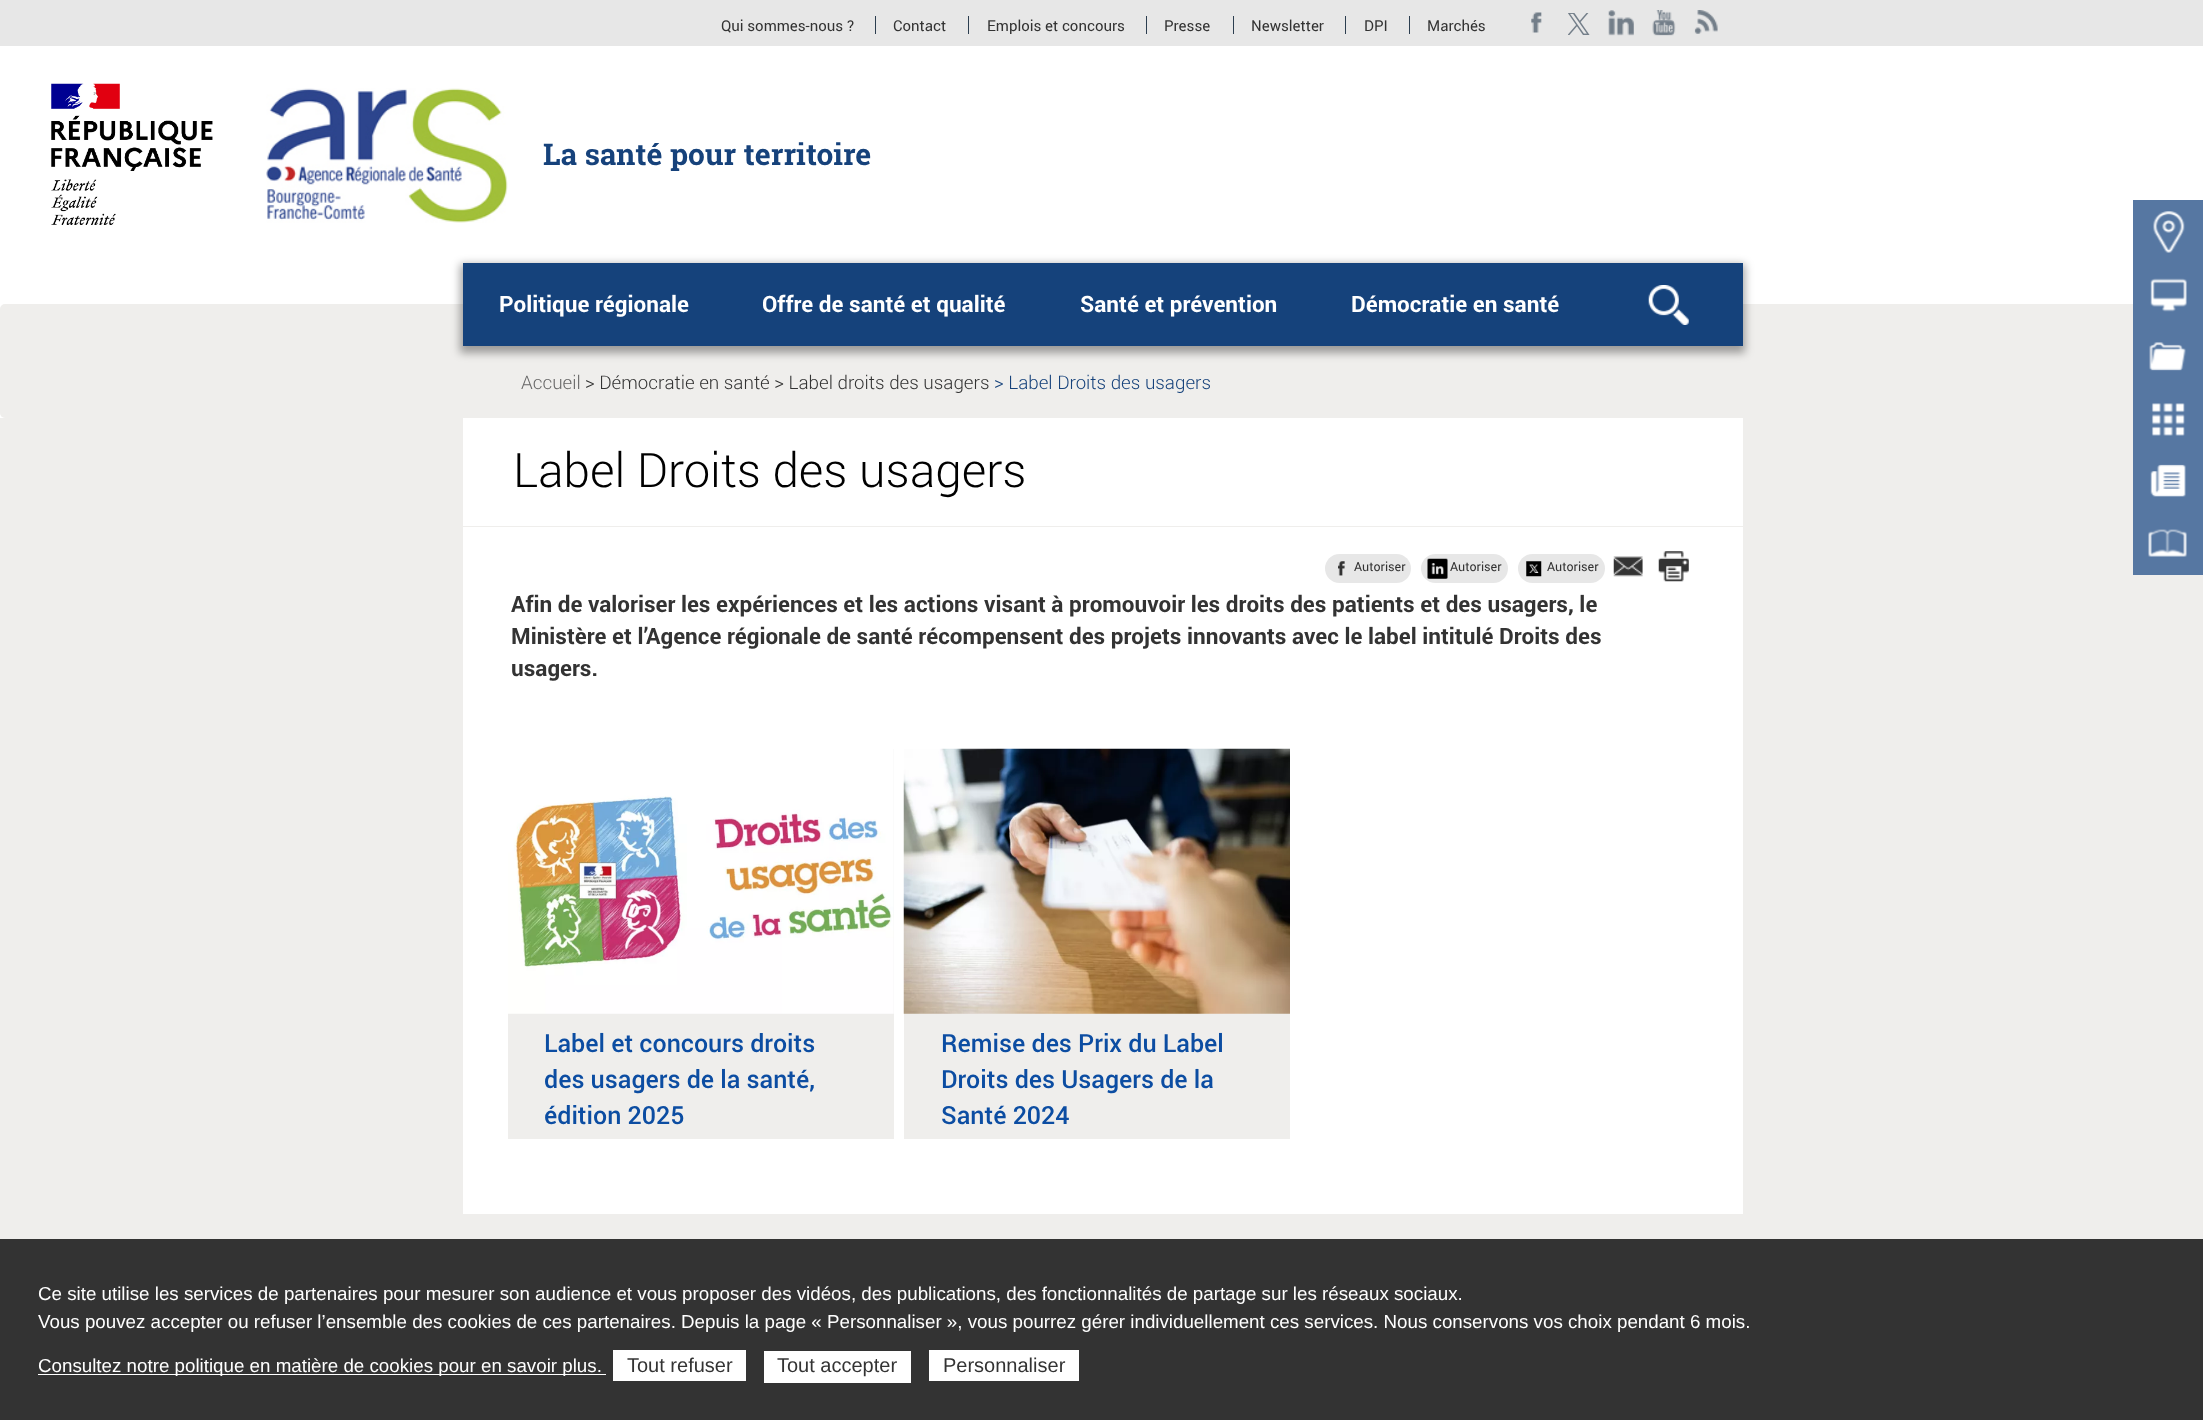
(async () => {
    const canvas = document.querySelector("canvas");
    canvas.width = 2203;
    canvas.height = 1420;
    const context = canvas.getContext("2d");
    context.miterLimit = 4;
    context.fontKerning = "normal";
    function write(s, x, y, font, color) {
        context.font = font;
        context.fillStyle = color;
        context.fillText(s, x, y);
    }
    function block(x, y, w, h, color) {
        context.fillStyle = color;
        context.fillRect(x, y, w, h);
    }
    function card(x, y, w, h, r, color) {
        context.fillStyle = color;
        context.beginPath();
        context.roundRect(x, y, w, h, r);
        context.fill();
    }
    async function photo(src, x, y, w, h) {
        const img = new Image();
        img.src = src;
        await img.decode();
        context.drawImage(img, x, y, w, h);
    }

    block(0, 0, 2203, 1420, "rgb(255, 255, 255)");
    block(0, 0, 2203, 46, "rgb(231, 231, 231)");
    write("Qui sommes-nous ?", 721, 31, "15px roboto", "rgb(51, 51, 51)");
    block(875, 16, 1, 18, "rgb(44, 62, 80)");
    write("Contact", 893, 31, "15px roboto", "rgb(51, 51, 51)");
    block(968, 16, 1, 18, "rgb(44, 62, 80)");
    write("Emplois et concours", 987, 31, "15px roboto", "rgb(51, 51, 51)");
    block(1146, 16, 1, 18, "rgb(44, 62, 80)");
    write("Presse", 1164, 31, "15px roboto", "rgb(51, 51, 51)");
    block(1233, 16, 1, 18, "rgb(44, 62, 80)");
    write("Newsletter", 1251, 31, "15px roboto", "rgb(51, 51, 51)");
    block(1345, 16, 1, 18, "rgb(44, 62, 80)");
    write("DPI", 1364, 31, "15px roboto", "rgb(51, 51, 51)");
    block(1409, 16, 1, 18, "rgb(44, 62, 80)");
    write("Marchés", 1427, 31, "15px roboto", "rgb(51, 51, 51)");
    await photo("media/1.png", 1531, 12, 11, 21);
    await photo("media/2.png", 1568, 13, 22, 22);
    await photo("media/3.png", 1608, 10, 26, 26);
    await photo("media/4.png", 1652, 10, 24, 26);
    await photo("media/5.png", 1694, 10, 24, 24);
    await photo("media/6.png", 51, 83, 162, 142);
    await photo("media/7.png", 266, 88, 242, 135);
    write("La santé pour territoire", 543, 165, "bold 30px Roboto Slab", "rgb(22, 66, 123)");
    card(0, 304, 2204, 114, 5, "rgb(239, 238, 236)");
    context.fillStyle = "rgba(0, 0, 0, 0.35)";
    context.filter = "blur(4.5px)";
    context.beginPath();
    context.rect(460, 264, 1285, 89);
    context.fill();
    context.filter = "none";
    block(463, 263, 1280, 83, "rgb(21, 66, 123)");
    write("Politique régionale", 499, 312, "bold 22.5px roboto", "rgb(255, 255, 255)");
    write("Offre de santé et qualité", 762, 312, "bold 22.5px roboto", "rgb(255, 255, 255)");
    write("Santé et prévention", 1080, 312, "bold 22.5px roboto", "rgb(255, 255, 255)");
    write("Démocratie en santé", 1351, 312, "bold 22.5px roboto", "rgb(255, 255, 255)");
    await photo("media/8.png", 1648, 285, 41, 40);
    block(0, 418, 2203, 821, "rgb(239, 238, 236)");
    block(2133, 200, 70, 375, "rgb(86, 119, 162)");
    await photo("media/9.png", 2153, 211, 32, 42);
    await photo("media/10.png", 2150, 278, 37, 34);
    await photo("media/11.png", 2149, 342, 37, 29);
    await photo("media/12.png", 2151, 403, 34, 33);
    await photo("media/13.png", 2150, 464, 36, 33);
    await photo("media/14.png", 2148, 529, 39, 28);
    write("Accueil", 521, 389, "300 18.75px Roboto", "rgb(102, 102, 102)");
    write("> Démocratie en santé > Label droits des usagers", 585, 389, "300 18.75px Roboto", "rgb(51, 51, 51)");
    write("> Label Droits des usagers", 994, 389, "300 18.75px Roboto", "rgb(22, 66, 123)");
    block(463, 418, 1280, 796, "rgb(255, 255, 255)");
    block(463, 526, 1280, 1, "rgb(239, 238, 236)");
    write("Label Droits des usagers", 513, 487, "300 47.5px Roboto", "rgb(0, 0, 0)");
    card(1325, 554, 86, 29, 14.5, "rgb(231, 231, 231)");
    await photo("media/15.png", 1338, 561, 7, 15);
    write("Autoriser", 1354, 571, "12.5px roboto", "rgb(51, 51, 51)");
    card(1421, 554, 87, 29, 14.5, "rgb(231, 231, 231)");
    await photo("media/16.png", 1427, 558, 21, 21);
    write("Autoriser", 1450, 571, "12.5px roboto", "rgb(51, 51, 51)");
    card(1518, 554, 87, 29, 14.5, "rgb(231, 231, 231)");
    await photo("media/17.png", 1526, 561, 16, 16);
    write("Autoriser", 1547, 571, "12.5px roboto", "rgb(51, 51, 51)");
    await photo("media/18.png", 1613, 556, 30, 21);
    await photo("media/19.png", 1658, 551, 31, 31);
    write("Afin de valoriser les expériences et les actions visant à promouvoir les droits des patients et des usagers, le", 511, 612, "bold 22.5px roboto", "rgb(51, 51, 51)");
    write("Ministère et l’Agence régionale de santé récompensent des projets innovants avec le label intitulé Droits des", 511, 644, "bold 22.5px roboto", "rgb(51, 51, 51)");
    write("usagers.", 511, 676, "bold 22.5px roboto", "rgb(51, 51, 51)");
    block(508, 749, 386, 390, "rgb(239, 238, 236)");
    await photo("media/20.png", 508, 749, 386, 265);
    write("Label et concours droits", 544, 1052, "500 25px Roboto", "rgb(12, 77, 162)");
    write("des usagers de la santé,", 544, 1088, "500 25px Roboto", "rgb(12, 77, 162)");
    write("édition 2025", 544, 1124, "500 25px Roboto", "rgb(12, 77, 162)");
    block(904, 1013, 386, 126, "rgb(239, 238, 236)");
    await photo("media/21.png", 903, 748, 387, 266);
    write("Remise des Prix du Label", 941, 1052, "500 25px Roboto", "rgb(12, 77, 162)");
    write("Droits des Usagers de la", 941, 1088, "500 25px Roboto", "rgb(12, 77, 162)");
    write("Santé 2024", 941, 1124, "500 25px Roboto", "rgb(12, 77, 162)");
    block(0, 1239, 2203, 181, "rgb(51, 51, 51)");
    write("Ce site utilise les services de partenaires pour mesurer son audience et vous proposer des vidéos, des publications, des fonctionnalités de partage sur les réseaux sociaux.", 38, 1300, "18.75px Liberation Sans", "rgb(255, 255, 255)");
    write("Vous pouvez accepter ou refuser l’ensemble des cookies de ces partenaires. Depuis la page « Personnaliser », vous pourrez gérer individuellement ces services. Nous conservons vos choix pendant 6 mois.", 38, 1328, "18.75px Liberation Sans", "rgb(255, 255, 255)");
    block(38, 1374, 568, 1, "rgb(255, 255, 255)");
    write("Consultez notre politique en matière de cookies pour en savoir plus.", 38, 1372, "18.75px Liberation Sans", "rgb(255, 255, 255)");
    block(613, 1350, 133, 31, "rgb(255, 255, 255)");
    write("Tout refuser", 627, 1372, "20px Liberation Sans", "rgb(51, 51, 51)");
    block(764, 1351, 147, 32, "rgb(255, 255, 255)");
    write("Tout accepter", 777, 1372, "20px Liberation Sans", "rgb(51, 51, 51)");
    block(929, 1350, 150, 31, "rgb(255, 255, 255)");
    write("Personnaliser", 943, 1372, "20px Liberation Sans", "rgb(51, 51, 51)");
})();
